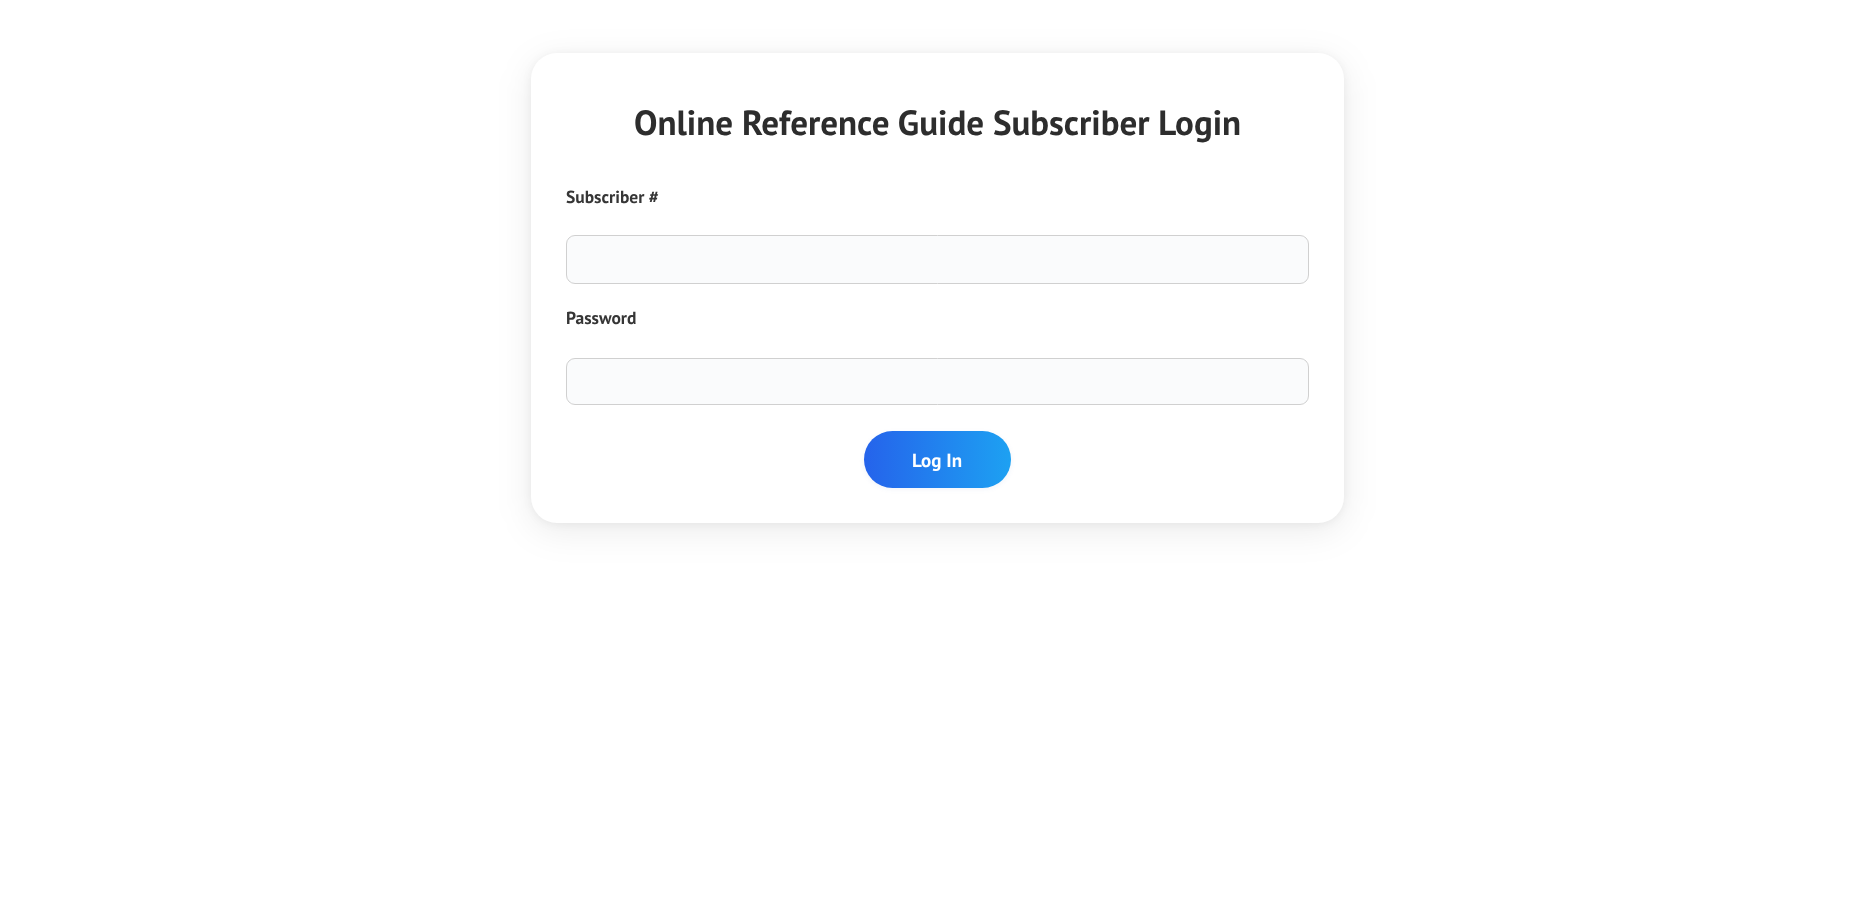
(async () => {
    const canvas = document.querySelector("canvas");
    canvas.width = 1875;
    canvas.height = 915;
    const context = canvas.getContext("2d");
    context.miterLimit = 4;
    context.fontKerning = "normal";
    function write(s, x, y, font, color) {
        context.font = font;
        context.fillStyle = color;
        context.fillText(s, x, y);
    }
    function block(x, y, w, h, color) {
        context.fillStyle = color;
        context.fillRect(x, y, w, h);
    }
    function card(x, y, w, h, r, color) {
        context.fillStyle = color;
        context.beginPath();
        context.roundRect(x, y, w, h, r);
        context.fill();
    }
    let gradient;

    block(0, 0, 1875, 915, "rgb(255, 255, 255)");
    context.fillStyle = "rgba(0, 0, 0, 0.05)";
    context.filter = "blur(4.5px)";
    context.beginPath();
    context.roundRect(531, 54, 813, 470, 26);
    context.fill();
    context.filter = "none";
    context.fillStyle = "rgba(0, 0, 0, 0.08)";
    context.filter = "blur(17.5px)";
    context.beginPath();
    context.roundRect(531, 61, 813, 470, 26);
    context.fill();
    context.filter = "none";
    card(531, 53, 813, 470, 26, "rgb(255, 255, 255)");
    write("Online Reference Guide Subscriber Login", 634, 135, "bold 35px PT Sans", "rgb(45, 45, 45)");
    write("Subscriber #", 566, 203, "bold 17.5px PT Sans", "rgb(54, 54, 54)");
    context.fillStyle = "rgb(250, 251, 252)";
    context.beginPath();
    context.roundRect(566.5, 235.5, 742, 48, 8.5);
    context.fill();
    context.strokeStyle = "rgb(208, 208, 208)";
    context.stroke();
    write("Password", 566, 324, "bold 17.5px PT Sans", "rgb(54, 54, 54)");
    context.fillStyle = "rgb(250, 251, 252)";
    context.beginPath();
    context.roundRect(566.5, 358.5, 742, 46, 8.5);
    context.fill();
    context.stroke();
    context.fillStyle = "rgba(30, 64, 175, 0.07)";
    context.filter = "blur(2.5px)";
    context.beginPath();
    context.roundRect(864, 433, 147, 56, 28);
    context.fill();
    context.filter = "none";
    gradient = context.createLinearGradient(864, 459, 1011, 459);
    gradient.addColorStop(0, "rgb(37, 99, 235)");
    gradient.addColorStop(1, "rgb(29, 161, 242)");
    context.fillStyle = gradient;
    context.beginPath();
    context.roundRect(864, 431, 147, 57, 28.5);
    context.fill();
    write("Log In", 912, 467, "bold 19px PT Sans", "rgb(255, 255, 255)");
})();
